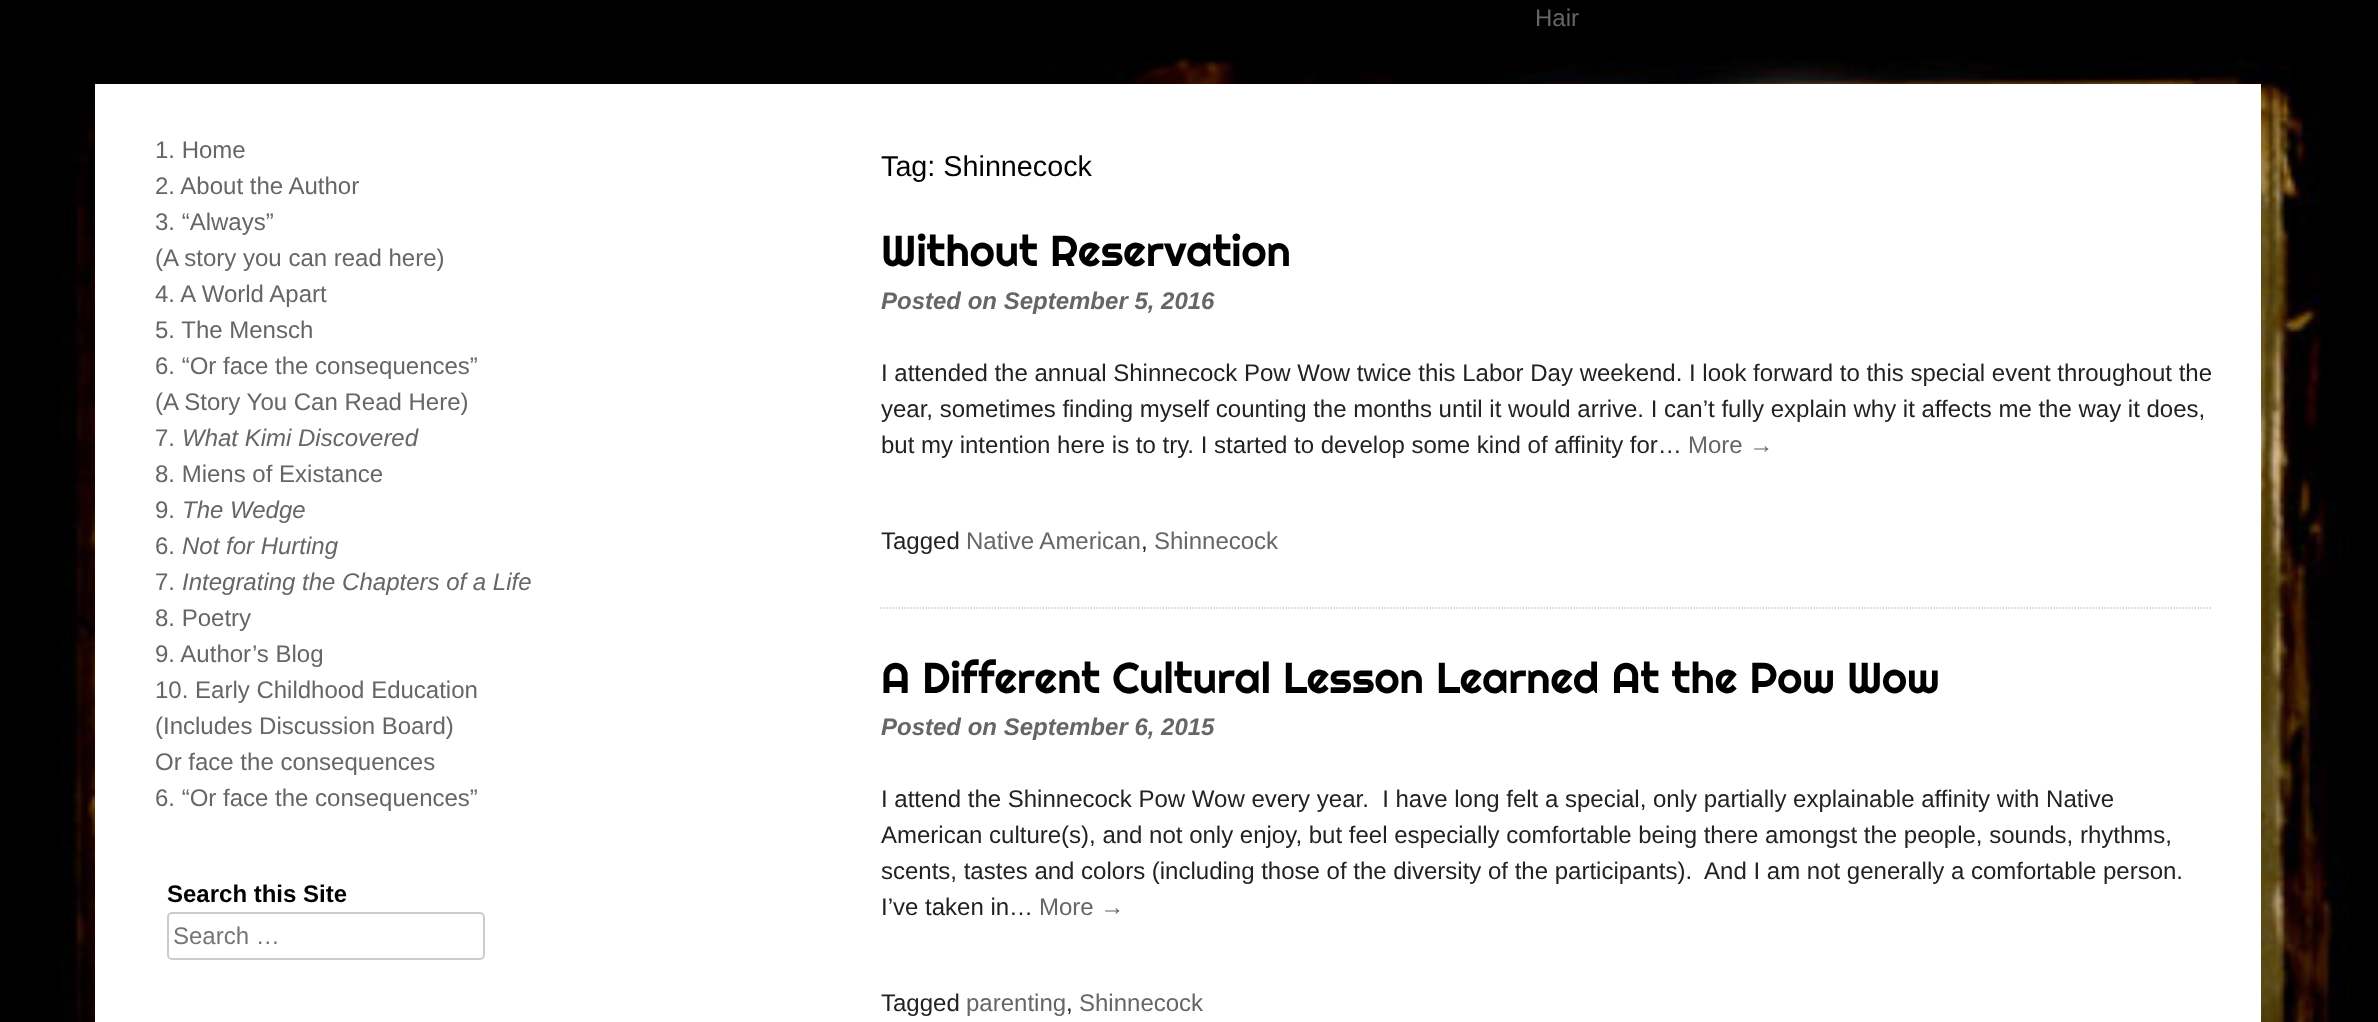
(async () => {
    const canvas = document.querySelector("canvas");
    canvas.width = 2378;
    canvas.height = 1022;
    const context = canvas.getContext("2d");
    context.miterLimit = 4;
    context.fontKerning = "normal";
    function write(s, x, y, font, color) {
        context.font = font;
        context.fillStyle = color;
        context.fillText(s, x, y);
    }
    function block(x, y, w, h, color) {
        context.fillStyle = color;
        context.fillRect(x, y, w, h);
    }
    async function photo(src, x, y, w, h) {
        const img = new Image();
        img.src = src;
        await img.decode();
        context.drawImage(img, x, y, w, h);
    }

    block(0, 0, 2378, 1022, "rgb(255, 255, 255)");
    await photo("media/1.png", 0, 0, 2378, 1022);
    write("Hair", 1535, 26, "24px Liberation Sans", "rgb(102, 102, 102)");
    block(95, 84, 2166, 938, "rgb(255, 255, 255)");
    write("1. Home", 155, 158, "24px Liberation Sans", "rgb(102, 102, 102)");
    write("2. About the Author", 155, 194, "24px Liberation Sans", "rgb(102, 102, 102)");
    write("3. “Always”", 155, 230, "24px Liberation Sans", "rgb(102, 102, 102)");
    write("(A story you can read here)", 155, 266, "24px Liberation Sans", "rgb(102, 102, 102)");
    write("4. A World Apart", 155, 302, "24px Liberation Sans", "rgb(102, 102, 102)");
    write("5. The Mensch", 155, 338, "24px Liberation Sans", "rgb(102, 102, 102)");
    write("6. “Or face the consequences”", 155, 374, "24px Liberation Sans", "rgb(102, 102, 102)");
    write("(A Story You Can Read Here)", 155, 410, "24px Liberation Sans", "rgb(102, 102, 102)");
    write("7.", 155, 446, "24px Liberation Sans", "rgb(102, 102, 102)");
    write("What Kimi Discovered", 182, 446, "italic 24px Liberation Sans", "rgb(102, 102, 102)");
    write("8. Miens of Existance", 155, 482, "24px Liberation Sans", "rgb(102, 102, 102)");
    write("9.", 155, 518, "24px Liberation Sans", "rgb(102, 102, 102)");
    write("The Wedge", 182, 518, "italic 24px Liberation Sans", "rgb(102, 102, 102)");
    write("6.", 155, 554, "24px Liberation Sans", "rgb(102, 102, 102)");
    write("Not for Hurting", 182, 554, "italic 24px Liberation Sans", "rgb(102, 102, 102)");
    write("7.", 155, 590, "24px Liberation Sans", "rgb(102, 102, 102)");
    write("Integrating the Chapters of a Life", 182, 590, "italic 24px Liberation Sans", "rgb(102, 102, 102)");
    write("8. Poetry", 155, 626, "24px Liberation Sans", "rgb(102, 102, 102)");
    write("9. Author’s Blog", 155, 662, "24px Liberation Sans", "rgb(102, 102, 102)");
    write("10. Early Childhood Education", 155, 698, "24px Liberation Sans", "rgb(102, 102, 102)");
    write("(Includes Discussion Board)", 155, 734, "24px Liberation Sans", "rgb(102, 102, 102)");
    write("Or face the consequences", 155, 770, "24px Liberation Sans", "rgb(102, 102, 102)");
    write("6. “Or face the consequences”", 155, 806, "24px Liberation Sans", "rgb(102, 102, 102)");
    write("Search this Site", 167, 902, "bold 24px Liberation Sans", "rgb(0, 0, 0)");
    context.beginPath();
    context.roundRect(168, 913, 316, 46, 4);
    context.strokeStyle = "rgb(204, 204, 204)";
    context.lineWidth = 2;
    context.stroke();
    write("Search …", 173, 944, "24px Liberation Sans", "rgb(117, 117, 117)");
    write("Tag: Shinnecock", 881, 176, "28.75px Liberation Sans", "rgb(0, 0, 0)");
    context.beginPath();
    context.moveTo(880.5, 608);
    context.lineTo(2212.5, 608);
    context.lineWidth = 1.5;
    context.setLineDash([1.5, 1.5]);
    context.stroke();
    write("Without Reservation", 881, 266, "43.2px Righteous", "rgb(0, 0, 0)");
    write("Posted on September 5, 2016", 881, 309, "italic bold 24px Liberation Sans", "rgb(102, 102, 102)");
    write("I attended the annual Shinnecock Pow Wow twice this Labor Day weekend. I look forward to this special event throughout the", 881, 381, "24px Liberation Sans", "rgb(34, 34, 34)");
    write("year, sometimes finding myself counting the months until it would arrive. I can’t fully explain why it affects me the way it does,", 881, 417, "24px Liberation Sans", "rgb(34, 34, 34)");
    write("but my intention here is to try. I started to develop some kind of affinity for…", 881, 453, "24px Liberation Sans", "rgb(34, 34, 34)");
    write("More →", 1688, 453, "24px Liberation Sans", "rgb(102, 102, 102)");
    write("Tagged", 881, 549, "24px Liberation Sans", "rgb(34, 34, 34)");
    write("Native American", 966, 549, "24px Liberation Sans", "rgb(102, 102, 102)");
    write(",", 1141, 549, "24px Liberation Sans", "rgb(34, 34, 34)");
    write("Shinnecock", 1154, 549, "24px Liberation Sans", "rgb(102, 102, 102)");
    write("A Different Cultural Lesson Learned At the Pow Wow", 881, 693, "43.2px Righteous", "rgb(0, 0, 0)");
    write("Posted on September 6, 2015", 881, 735, "italic bold 24px Liberation Sans", "rgb(102, 102, 102)");
    write("I attend the Shinnecock Pow Wow every year.  I have long felt a special, only partially explainable affinity with Native", 881, 807, "24px Liberation Sans", "rgb(34, 34, 34)");
    write("American culture(s), and not only enjoy, but feel especially comfortable being there amongst the people, sounds, rhythms,", 881, 843, "24px Liberation Sans", "rgb(34, 34, 34)");
    write("scents, tastes and colors (including those of the diversity of the participants).  And I am not generally a comfortable person.", 881, 879, "24px Liberation Sans", "rgb(34, 34, 34)");
    write("I’ve taken in…", 881, 915, "24px Liberation Sans", "rgb(34, 34, 34)");
    write("More →", 1039, 915, "24px Liberation Sans", "rgb(102, 102, 102)");
    write("Tagged", 881, 1011, "24px Liberation Sans", "rgb(34, 34, 34)");
    write("parenting", 966, 1011, "24px Liberation Sans", "rgb(102, 102, 102)");
    write(",", 1066, 1011, "24px Liberation Sans", "rgb(34, 34, 34)");
    write("Shinnecock", 1079, 1011, "24px Liberation Sans", "rgb(102, 102, 102)");
})();
